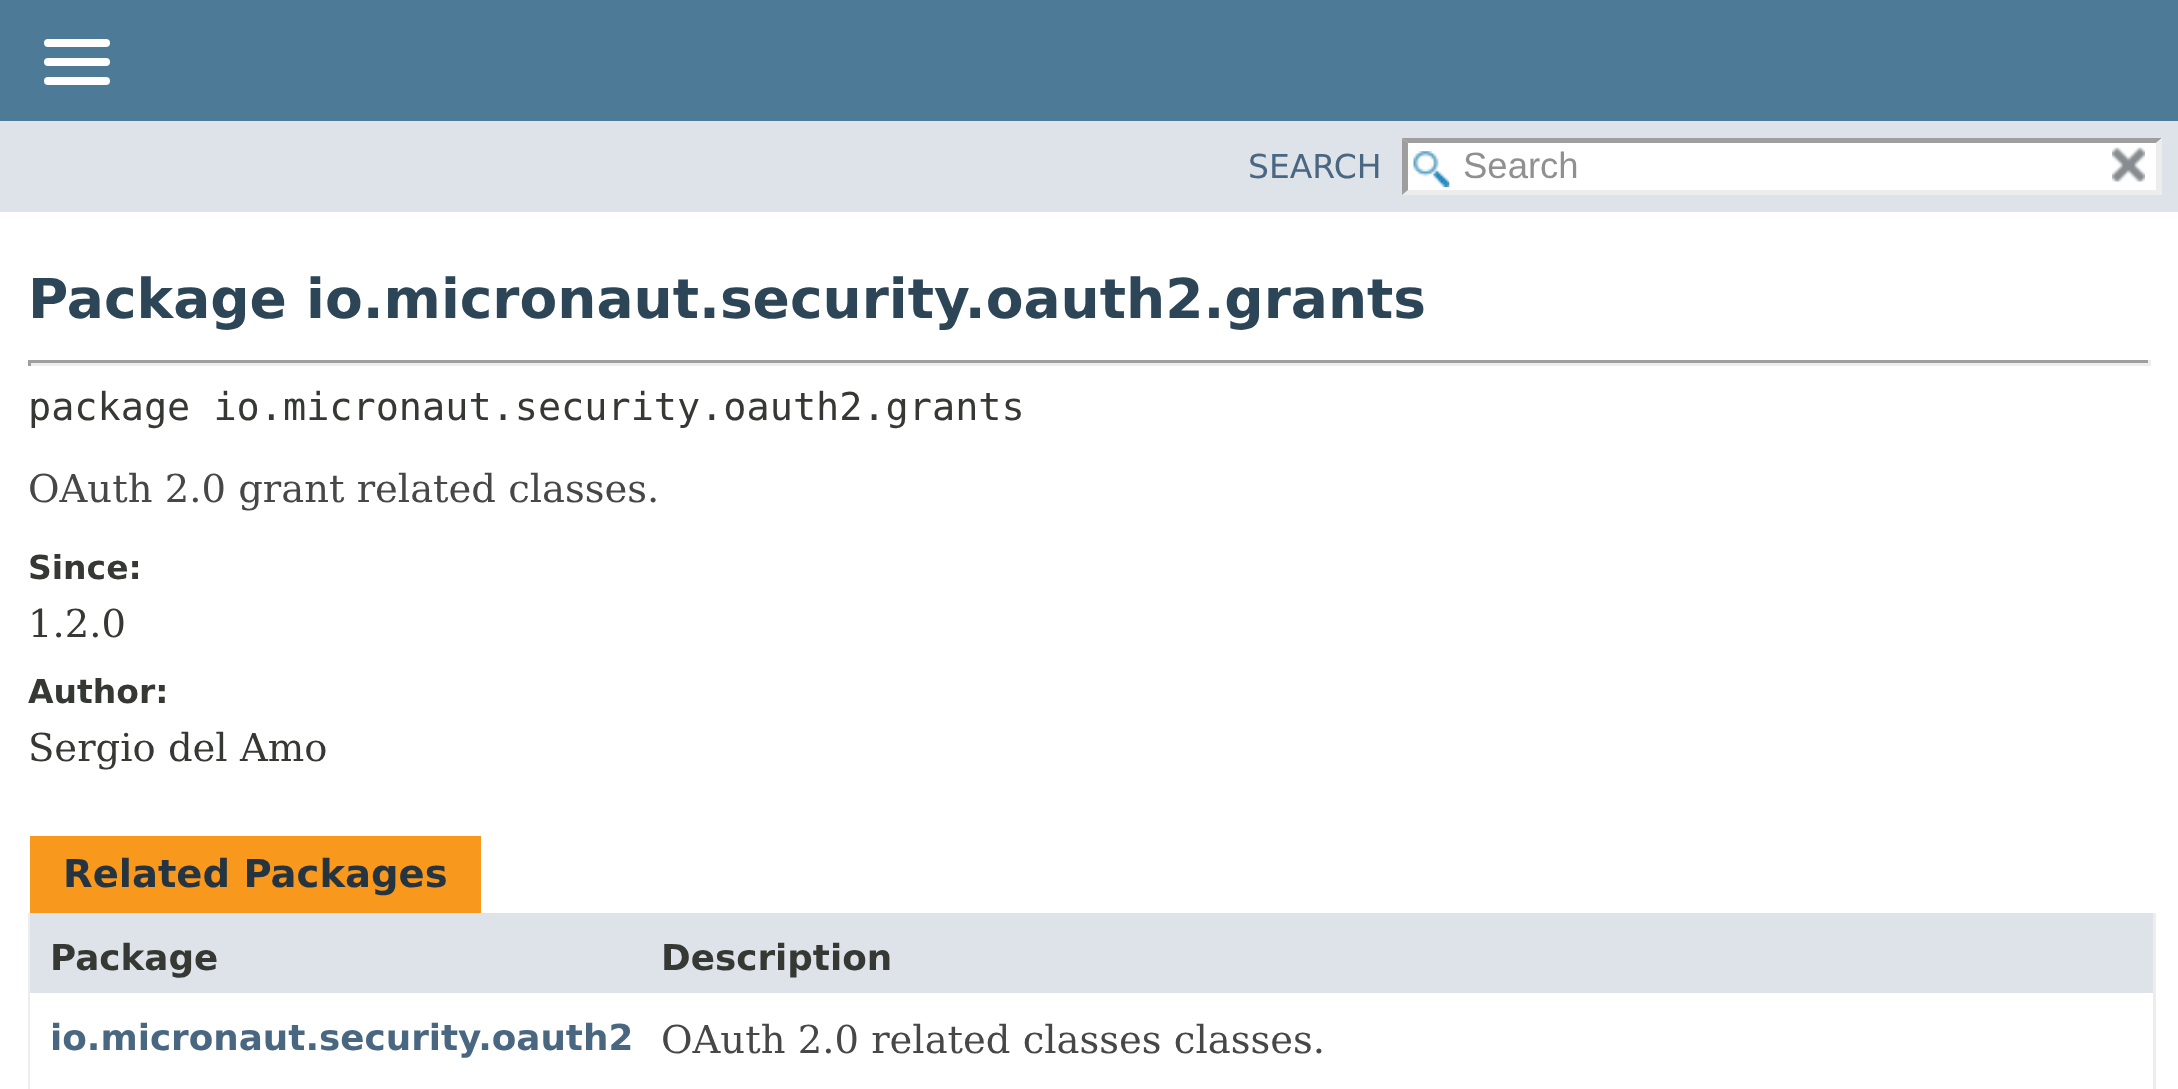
(async () => {
    const canvas = document.querySelector("canvas");
    canvas.width = 2178;
    canvas.height = 1089;
    const context = canvas.getContext("2d");
    context.miterLimit = 4;
    context.fontKerning = "normal";
    function write(s, x, y, font, color) {
        context.font = font;
        context.fillStyle = color;
        context.fillText(s, x, y);
    }
    function block(x, y, w, h, color) {
        context.fillStyle = color;
        context.fillRect(x, y, w, h);
    }
    function card(x, y, w, h, r, color) {
        context.fillStyle = color;
        context.beginPath();
        context.roundRect(x, y, w, h, r);
        context.fill();
    }
    async function photo(src, x, y, w, h) {
        const img = new Image();
        img.src = src;
        await img.decode();
        context.drawImage(img, x, y, w, h);
    }

    block(0, 0, 2178, 1089, "rgb(255, 255, 255)");
    block(0, 0, 2178, 121, "rgb(77, 122, 151)");
    card(44, 39, 66, 8, 4, "rgb(255, 255, 255)");
    card(44, 58, 66, 8, 4, "rgb(255, 255, 255)");
    card(44, 77, 66, 8, 4, "rgb(255, 255, 255)");
    block(0, 121, 2178, 91, "rgb(222, 227, 233)");
    write("SEARCH", 1248, 178, "33px DejaVu Sans", "rgb(74, 103, 130)");
    block(1403, 138, 759, 57, "rgb(255, 255, 255)");
    await photo("media/1.png", 1413, 151, 37, 36);
    context.fillStyle = "rgb(158, 158, 158)";
    context.beginPath();
    context.moveTo(1402, 138);
    context.lineTo(2162, 138);
    context.lineTo(2156, 143);
    context.lineTo(1408, 143);
    context.closePath();
    context.fill();
    context.fillStyle = "rgb(237, 237, 237)";
    context.beginPath();
    context.moveTo(2162, 138);
    context.lineTo(2162, 195);
    context.lineTo(2156, 190);
    context.lineTo(2156, 143);
    context.closePath();
    context.fill();
    context.beginPath();
    context.moveTo(2162, 195);
    context.lineTo(1402, 195);
    context.lineTo(1408, 190);
    context.lineTo(2156, 190);
    context.closePath();
    context.fill();
    context.fillStyle = "rgb(158, 158, 158)";
    context.beginPath();
    context.moveTo(1402, 195);
    context.lineTo(1402, 138);
    context.lineTo(1408, 143);
    context.lineTo(1408, 190);
    context.closePath();
    context.fill();
    write("Search", 1463, 178, "36.5px Liberation Sans", "rgb(144, 144, 144)");
    await photo("media/2.png", 2112, 147, 33, 35);
    write("Package io.micronaut.security.oauth2.grants", 28, 318, "bold 55px DejaVu Sans", "rgb(44, 69, 87)");
    block(28, 360, 2123, 3, "rgb(159, 159, 159)");
    block(2148, 360, 3, 6, "rgb(238, 238, 238)");
    block(28, 363, 2123, 3, "rgb(238, 238, 238)");
    block(28, 360, 3, 6, "rgb(159, 159, 159)");
    write("package io.micronaut.security.oauth2.grants", 28, 420, "38.5px DejaVu Sans Mono", "rgb(53, 56, 51)");
    write("OAuth 2.0 grant related classes.", 28, 502, "38.5px DejaVu Serif", "rgb(71, 71, 71)");
    write("Since:", 28, 579, "bold 33px DejaVu Sans", "rgb(53, 56, 51)");
    write("1.2.0", 28, 637, "38.5px DejaVu Serif", "rgb(53, 56, 51)");
    write("Author:", 28, 703, "bold 33px DejaVu Sans", "rgb(53, 56, 51)");
    write("Sergio del Amo", 28, 761, "38.5px DejaVu Serif", "rgb(53, 56, 51)");
    block(30, 836, 451, 77, "rgb(248, 152, 29)");
    write("Related Packages", 63, 887, "bold 38.5px DejaVu Sans", "rgb(37, 52, 65)");
    block(2153, 913, 3, 176, "rgb(237, 237, 237)");
    block(28, 913, 2, 176, "rgb(237, 237, 237)");
    block(30, 913, 2123, 80, "rgb(222, 227, 233)");
    write("Package", 50, 970, "bold 35.75px DejaVu Sans", "rgb(53, 56, 51)");
    write("Description", 661, 970, "bold 35.75px DejaVu Sans", "rgb(53, 56, 51)");
    write("io.micronaut.security.oauth2", 50, 1050, "bold 35.75px DejaVu Sans", "rgb(74, 103, 130)");
    write("OAuth 2.0 related classes classes.", 661, 1053, "38.5px DejaVu Serif", "rgb(71, 71, 71)");
})();
